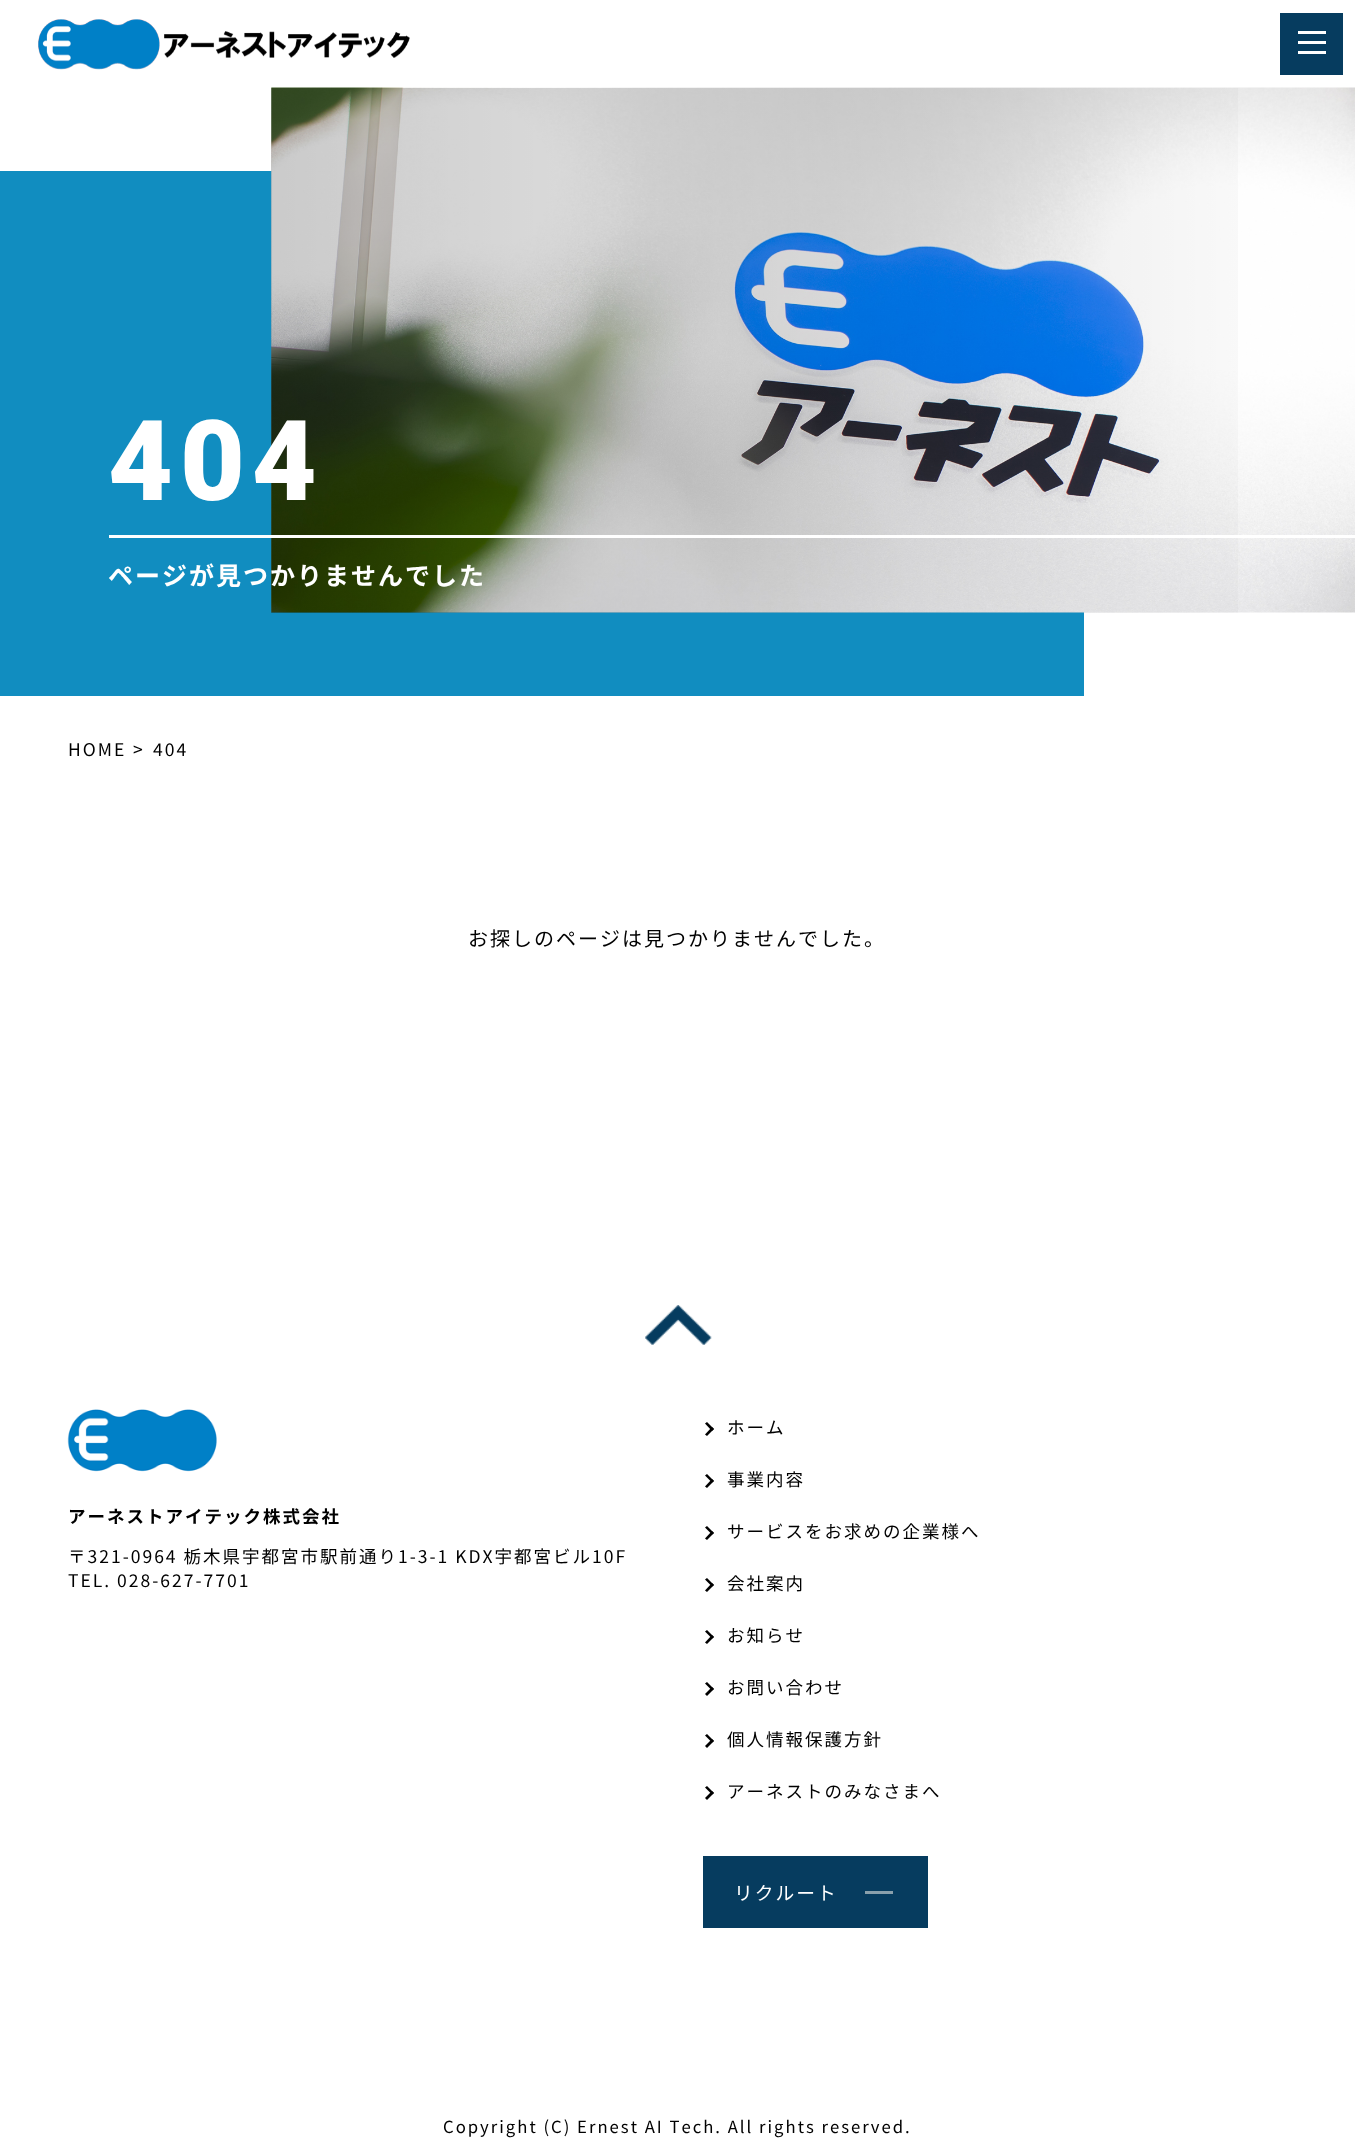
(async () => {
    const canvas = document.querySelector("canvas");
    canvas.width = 1355;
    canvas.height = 2145;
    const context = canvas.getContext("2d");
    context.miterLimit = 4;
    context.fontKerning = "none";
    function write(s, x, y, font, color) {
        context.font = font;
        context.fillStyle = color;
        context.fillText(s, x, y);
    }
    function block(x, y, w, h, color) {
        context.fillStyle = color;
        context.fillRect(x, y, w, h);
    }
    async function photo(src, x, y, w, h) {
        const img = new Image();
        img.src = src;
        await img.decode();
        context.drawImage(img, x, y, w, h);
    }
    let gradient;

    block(0, 0, 1355, 2145, "rgb(255, 255, 255)");
    await photo("media/1.png", 38, 19, 372, 51);
    block(1280, 13, 63, 62, "rgb(6, 60, 95)");
    block(1298, 31, 28, 3, "rgb(255, 255, 255)");
    block(1298, 41, 28, 3, "rgb(255, 255, 255)");
    block(1298, 51, 28, 3, "rgb(255, 255, 255)");
    block(0, 171, 1084, 525, "rgb(17, 141, 192)");
    await photo("media/2.png", 271, 87, 1084, 526);
    gradient = context.createLinearGradient(271, 350, 1355, 350);
    gradient.addColorStop(0, "rgba(0, 0, 0, 0.2)");
    gradient.addColorStop(1, "rgba(0, 0, 0, 0)");
    context.fillStyle = gradient;
    context.fillRect(271, 88, 967, 525);
    block(109, 535, 1246, 3, "rgb(255, 255, 255)");
    context.letterSpacing = "7px";
    write("404", 108, 500, "900 112px Roboto", "rgb(255, 255, 255)");
    context.letterSpacing = "2px";
    write("ページが見つかりませんでした", 108, 585, "bold 25px Noto Sans JP", "rgb(255, 255, 255)");
    write("HOME", 68, 756, "17.5px Noto Sans JP", "rgb(0, 0, 0)");
    write(">", 133, 756, "17.5px Noto Sans JP", "rgb(0, 0, 0)");
    write("404", 153, 756, "17.5px Noto Sans JP", "rgb(0, 0, 0)");
    write("お探しのページは見つかりませんでした。", 468, 946, "20px Noto Sans JP", "rgb(0, 0, 0)");
    await photo("media/3.png", 645, 1305, 67, 40);
    await photo("media/4.png", 67, 1409, 150, 63);
    write("アーネストアイテック株式会社", 68, 1523, "bold 17.5px Noto Sans JP", "rgb(0, 0, 0)");
    write("〒321-0964 栃木県宇都宮市駅前通り1-3-1 KDX宇都宮ビル10F", 68, 1563, "17.5px Noto Sans JP", "rgb(0, 0, 0)");
    write("TEL. 028-627-7701", 68, 1587, "17.5px Noto Sans JP", "rgb(0, 0, 0)");
    context.beginPath();
    context.moveTo(707, 1422);
    context.lineTo(714, 1429);
    context.lineTo(712, 1431);
    context.lineTo(705, 1423.5);
    context.closePath();
    context.fill();
    context.beginPath();
    context.moveTo(712, 1427);
    context.lineTo(714, 1429);
    context.lineTo(707, 1436);
    context.lineTo(705, 1434.5);
    context.closePath();
    context.fill();
    write("ホーム", 727, 1434, "17.5px Noto Sans JP", "rgb(0, 0, 0)");
    context.beginPath();
    context.moveTo(707, 1474);
    context.lineTo(714, 1481);
    context.lineTo(712, 1482.5);
    context.lineTo(705, 1475.5);
    context.closePath();
    context.fill();
    context.beginPath();
    context.moveTo(712, 1479);
    context.lineTo(714, 1481);
    context.lineTo(707, 1488);
    context.lineTo(705, 1486.5);
    context.closePath();
    context.fill();
    write("事業内容", 727, 1486, "17.5px Noto Sans JP", "rgb(0, 0, 0)");
    context.beginPath();
    context.moveTo(707, 1526);
    context.lineTo(714, 1533);
    context.lineTo(712, 1534.5);
    context.lineTo(705, 1527.5);
    context.closePath();
    context.fill();
    context.beginPath();
    context.moveTo(712, 1531);
    context.lineTo(714, 1533);
    context.lineTo(707, 1540);
    context.lineTo(705, 1538.5);
    context.closePath();
    context.fill();
    write("サービスをお求めの企業様へ", 727, 1538, "17.5px Noto Sans JP", "rgb(0, 0, 0)");
    context.beginPath();
    context.moveTo(707, 1578);
    context.lineTo(714, 1585);
    context.lineTo(712, 1586.5);
    context.lineTo(705, 1579.5);
    context.closePath();
    context.fill();
    context.beginPath();
    context.moveTo(712, 1583);
    context.lineTo(714, 1585);
    context.lineTo(707, 1592);
    context.lineTo(705, 1590.5);
    context.closePath();
    context.fill();
    write("会社案内", 727, 1590, "17.5px Noto Sans JP", "rgb(0, 0, 0)");
    context.beginPath();
    context.moveTo(707, 1630);
    context.lineTo(714, 1637);
    context.lineTo(712, 1638.5);
    context.lineTo(705, 1631.5);
    context.closePath();
    context.fill();
    context.beginPath();
    context.moveTo(712, 1635);
    context.lineTo(714, 1637);
    context.lineTo(707, 1644);
    context.lineTo(705, 1642.5);
    context.closePath();
    context.fill();
    write("お知らせ", 727, 1642, "17.5px Noto Sans JP", "rgb(0, 0, 0)");
    context.beginPath();
    context.moveTo(707, 1682);
    context.lineTo(714, 1689);
    context.lineTo(712, 1690.5);
    context.lineTo(705, 1683.5);
    context.closePath();
    context.fill();
    context.beginPath();
    context.moveTo(712, 1687);
    context.lineTo(714, 1689);
    context.lineTo(707, 1696);
    context.lineTo(705, 1694);
    context.closePath();
    context.fill();
    write("お問い合わせ", 727, 1694, "17.5px Noto Sans JP", "rgb(0, 0, 0)");
    context.beginPath();
    context.moveTo(707, 1734);
    context.lineTo(714, 1741);
    context.lineTo(712, 1742.5);
    context.lineTo(705, 1735.5);
    context.closePath();
    context.fill();
    context.beginPath();
    context.moveTo(712, 1739);
    context.lineTo(714, 1741);
    context.lineTo(707, 1748);
    context.lineTo(705, 1746);
    context.closePath();
    context.fill();
    write("個人情報保護方針", 727, 1746, "17.5px Noto Sans JP", "rgb(0, 0, 0)");
    context.beginPath();
    context.moveTo(707, 1786);
    context.lineTo(714, 1793);
    context.lineTo(712, 1794.5);
    context.lineTo(705, 1787.5);
    context.closePath();
    context.fill();
    context.beginPath();
    context.moveTo(712, 1791);
    context.lineTo(714, 1793);
    context.lineTo(707, 1800);
    context.lineTo(705, 1798);
    context.closePath();
    context.fill();
    write("アーネストのみなさまへ", 727, 1798, "17.5px Noto Sans JP", "rgb(0, 0, 0)");
    block(703, 1856, 225, 72, "rgb(6, 60, 95)");
    write("リクルート", 734, 1900, "18.75px Noto Sans JP", "rgb(255, 255, 255)");
    block(865, 1891, 28, 3, "rgb(137, 160, 172)");
    write("Copyright (C) Ernest AI Tech. All rights reserved.", 443, 2133, "16.7px Noto Sans JP", "rgb(0, 0, 0)");
})();
